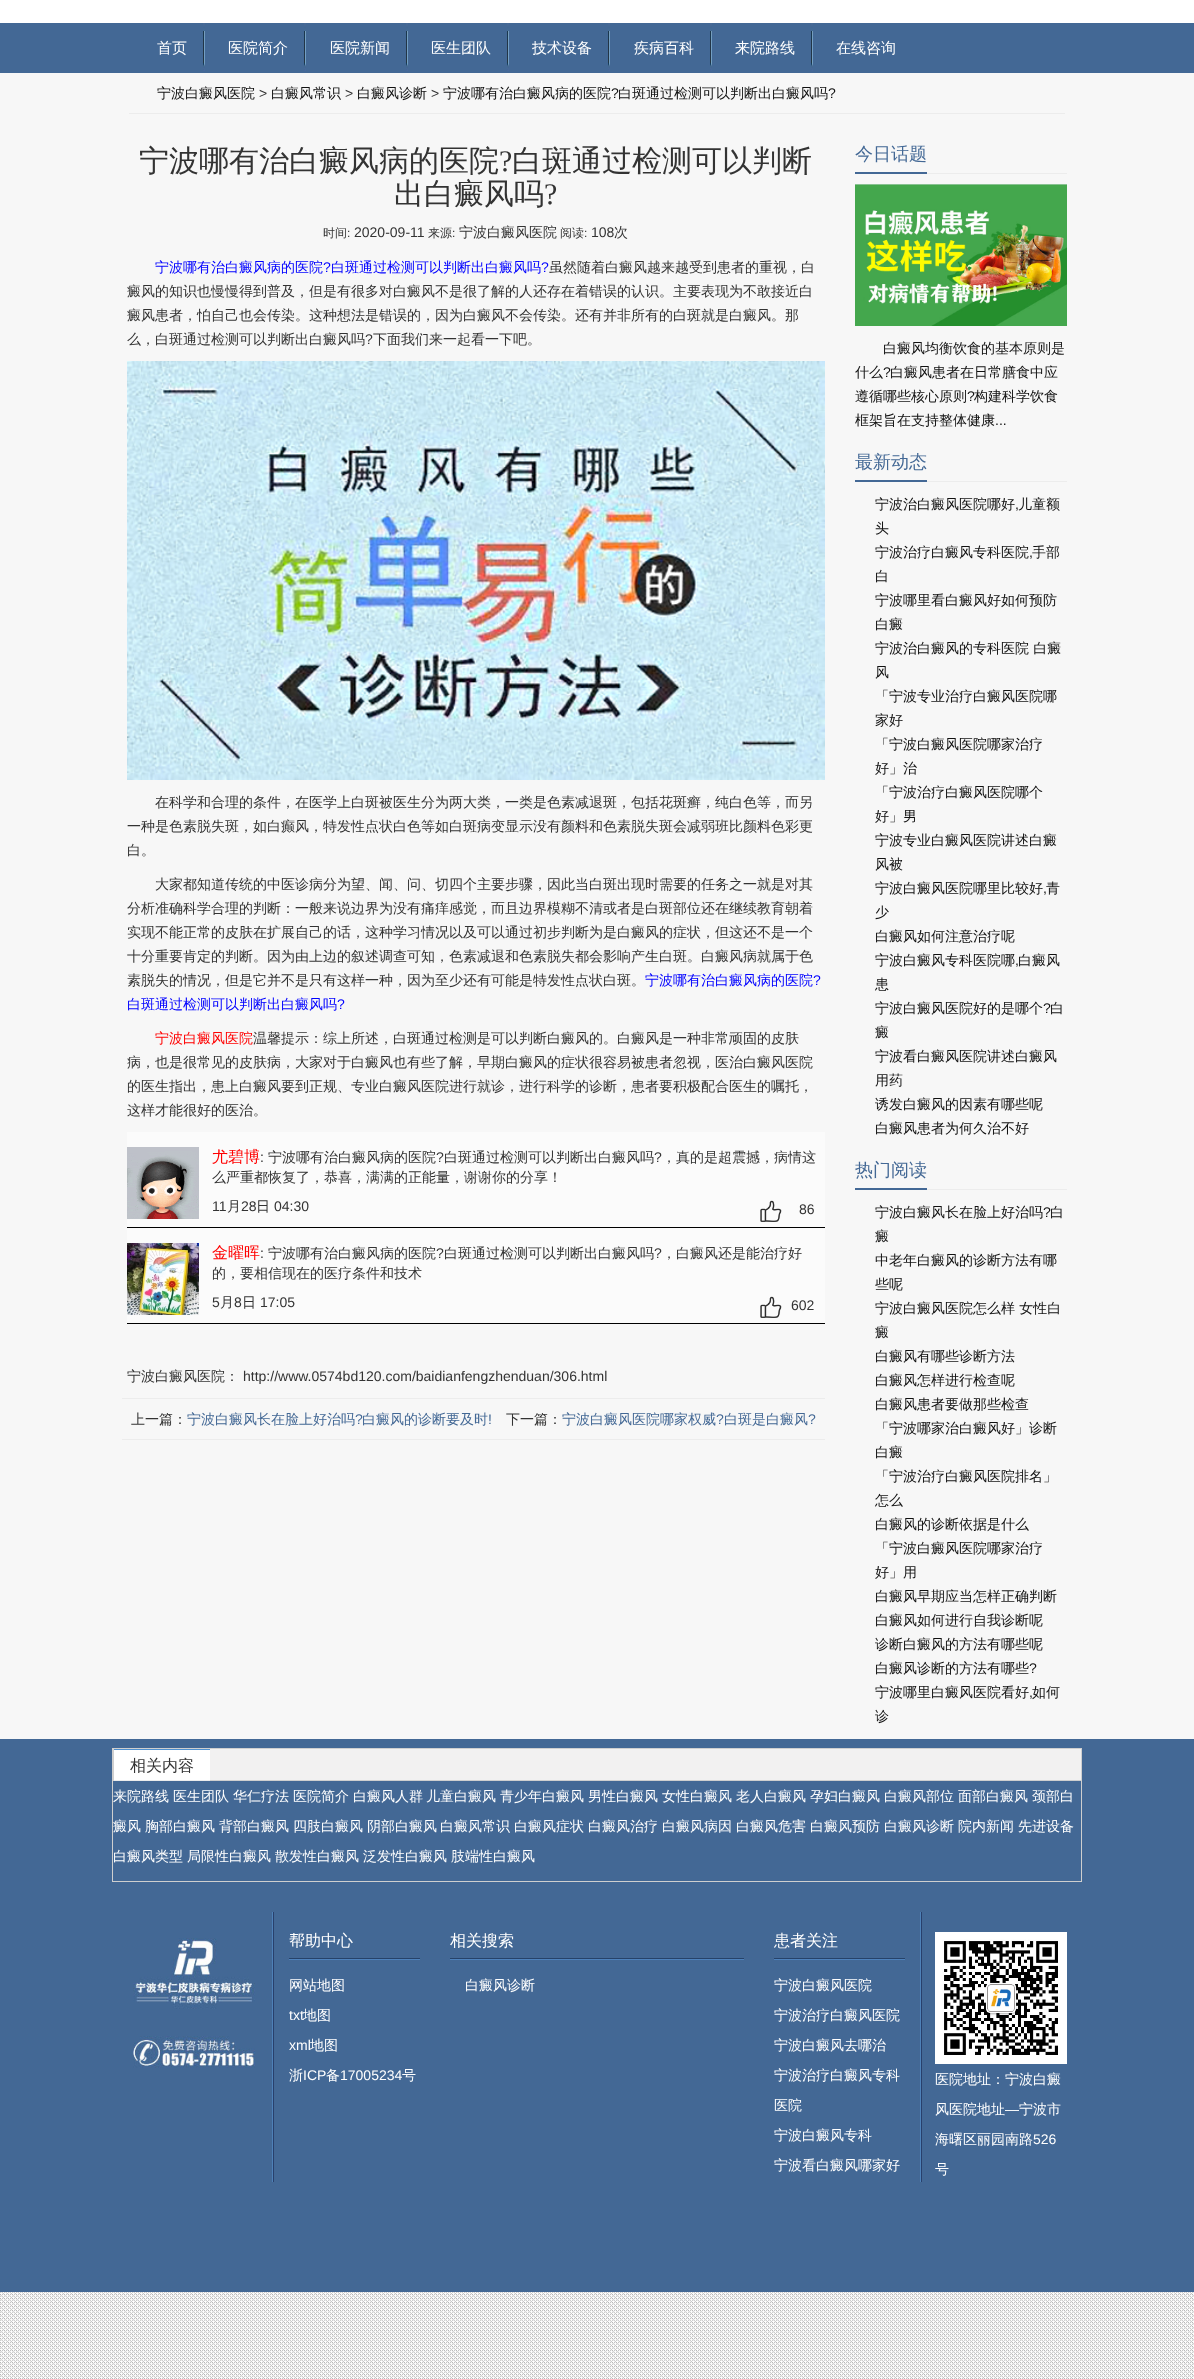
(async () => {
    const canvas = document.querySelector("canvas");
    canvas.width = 1194;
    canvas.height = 2379;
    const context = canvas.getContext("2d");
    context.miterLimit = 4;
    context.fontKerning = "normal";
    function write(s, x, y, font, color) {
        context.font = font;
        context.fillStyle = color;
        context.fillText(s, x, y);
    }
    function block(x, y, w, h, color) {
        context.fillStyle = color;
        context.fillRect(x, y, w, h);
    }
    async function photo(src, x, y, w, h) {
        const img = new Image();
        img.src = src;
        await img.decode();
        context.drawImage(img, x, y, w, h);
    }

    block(0, 0, 1194, 2379, "rgb(255, 255, 255)");
    await photo("media/1.png", 0, 2292, 1194, 87);
    block(0, 23, 1194, 50, "rgb(67, 104, 149)");
    await photo("media/2.png", 203, 23, 2, 48);
    write("首页", 157, 53, "500 15px WenQuanYi Zen Hei", "rgb(255, 255, 255)");
    await photo("media/2.png", 304, 23, 2, 48);
    write("医院简介", 228, 53, "500 15px WenQuanYi Zen Hei", "rgb(255, 255, 255)");
    await photo("media/2.png", 406, 23, 2, 48);
    write("医院新闻", 330, 53, "500 15px WenQuanYi Zen Hei", "rgb(255, 255, 255)");
    await photo("media/2.png", 507, 23, 2, 48);
    write("医生团队", 431, 53, "500 15px WenQuanYi Zen Hei", "rgb(255, 255, 255)");
    await photo("media/2.png", 608, 23, 2, 48);
    write("技术设备", 532, 53, "500 15px WenQuanYi Zen Hei", "rgb(255, 255, 255)");
    await photo("media/2.png", 710, 23, 2, 48);
    write("疾病百科", 634, 53, "500 15px WenQuanYi Zen Hei", "rgb(255, 255, 255)");
    await photo("media/2.png", 811, 23, 2, 48);
    write("来院路线", 735, 53, "500 15px WenQuanYi Zen Hei", "rgb(255, 255, 255)");
    write("在线咨询", 836, 53, "500 15px WenQuanYi Zen Hei", "rgb(255, 255, 255)");
    block(0, 73, 1194, 1666, "rgb(247, 247, 247)");
    block(129, 113, 936, 1, "rgb(236, 236, 236)");
    write("宁波白癜风医院", 157, 98, "500 14px WenQuanYi Zen Hei", "rgb(17, 17, 17)");
    write(">", 259, 98, "14px Liberation Sans", "rgb(51, 51, 51)");
    write("白癜风常识", 271, 98, "500 14px WenQuanYi Zen Hei", "rgb(17, 17, 17)");
    write(">", 345, 98, "14px Liberation Sans", "rgb(51, 51, 51)");
    write("白癜风诊断", 357, 98, "500 14px WenQuanYi Zen Hei", "rgb(17, 17, 17)");
    write(">", 431, 98, "14px Liberation Sans", "rgb(51, 51, 51)");
    write("宁波哪有治白癜风病的医院", 443, 98, "500 14px WenQuanYi Zen Hei", "rgb(17, 17, 17)");
    write("?", 611, 98, "14px Liberation Sans", "rgb(17, 17, 17)");
    write("白斑通过检测可以判断出白癜风吗", 618, 98, "500 14px WenQuanYi Zen Hei", "rgb(17, 17, 17)");
    write("?", 828, 98, "14px Liberation Sans", "rgb(17, 17, 17)");
    write("宁波哪有治白癜风病的医院", 139, 171, "500 30px WenQuanYi Zen Hei", "rgb(51, 51, 51)");
    write("?", 499, 171, "30px Liberation Serif", "rgb(51, 51, 51)");
    write("白斑通过检测可以判断", 512, 171, "500 30px WenQuanYi Zen Hei", "rgb(51, 51, 51)");
    write("出白癜风吗", 394, 204, "500 30px WenQuanYi Zen Hei", "rgb(51, 51, 51)");
    write("?", 544, 204, "30px Liberation Serif", "rgb(51, 51, 51)");
    write("时间", 323, 237, "500 12px WenQuanYi Zen Hei", "rgb(51, 51, 51)");
    write(":", 347, 237, "12px Liberation Sans", "rgb(51, 51, 51)");
    write("2020-09-11", 354, 237, "14px Liberation Sans", "rgb(51, 51, 51)");
    write("来源", 428, 237, "500 12px WenQuanYi Zen Hei", "rgb(51, 51, 51)");
    write(":", 452, 237, "12px Liberation Sans", "rgb(51, 51, 51)");
    write("宁波白癜风医院", 459, 237, "500 14px WenQuanYi Zen Hei", "rgb(51, 51, 51)");
    write("阅读", 560, 237, "500 12px WenQuanYi Zen Hei", "rgb(51, 51, 51)");
    write(":", 584, 237, "12px Liberation Sans", "rgb(51, 51, 51)");
    write("108", 591, 237, "14px Liberation Sans", "rgb(51, 51, 51)");
    write("次", 614, 237, "500 14px WenQuanYi Zen Hei", "rgb(51, 51, 51)");
    write("宁波哪有治白癜风病的医院", 155, 272, "500 14px WenQuanYi Zen Hei", "rgb(0, 0, 255)");
    write("?", 323, 272, "14px Liberation Sans", "rgb(0, 0, 255)");
    write("白斑通过检测可以判断出白癜风吗", 331, 272, "500 14px WenQuanYi Zen Hei", "rgb(0, 0, 255)");
    write("?", 541, 272, "14px Liberation Sans", "rgb(0, 0, 255)");
    write("虽然随着白癜风越来越受到患者的重视，白", 549, 272, "500 14px WenQuanYi Zen Hei", "rgb(51, 51, 51)");
    write("癜风的知识也慢慢得到普及，但是有很多对白癜风不是很了解的人还存在着错误的认识。主要表现为不敢接近白", 127, 296, "500 14px WenQuanYi Zen Hei", "rgb(51, 51, 51)");
    write("癜风患者，怕自己也会传染。这种想法是错误的，因为白癜风不会传染。还有并非所有的白斑就是白癜风。那", 127, 320, "500 14px WenQuanYi Zen Hei", "rgb(51, 51, 51)");
    write("么，白斑通过检测可以判断出白癜风吗", 127, 344, "500 14px WenQuanYi Zen Hei", "rgb(51, 51, 51)");
    write("?", 365, 344, "14px Liberation Sans", "rgb(51, 51, 51)");
    write("下面我们来一起看一下吧。", 373, 344, "500 14px WenQuanYi Zen Hei", "rgb(51, 51, 51)");
    await photo("media/3.png", 127, 361, 698, 419);
    write("在科学和合理的条件，在医学上白斑被医生分为两大类，一类是色素减退斑，包括花斑癣，纯白色等，而另", 155, 807, "500 14px WenQuanYi Zen Hei", "rgb(51, 51, 51)");
    write("一种是色素脱失斑，如白癫风，特发性点状白色等如白斑病变显示没有颜料和色素脱失斑会减弱班比颜料色彩更", 127, 831, "500 14px WenQuanYi Zen Hei", "rgb(51, 51, 51)");
    write("白。", 127, 855, "500 14px WenQuanYi Zen Hei", "rgb(51, 51, 51)");
    write("大家都知道传统的中医诊病分为望、闻、问、切四个主要步骤，因此当白斑出现时需要的任务之一就是对其", 155, 889, "500 14px WenQuanYi Zen Hei", "rgb(51, 51, 51)");
    write("分析准确科学合理的判断：一般来说边界为没有痛痒感觉，而且边界模糊不清或者是白斑部位还在继续教育朝着", 127, 913, "500 14px WenQuanYi Zen Hei", "rgb(51, 51, 51)");
    write("实现不能正常的皮肤在扩展自己的话，这种学习情况以及可以通过初步判断为是白癜风的症状，但这还不是一个", 127, 937, "500 14px WenQuanYi Zen Hei", "rgb(51, 51, 51)");
    write("十分重要肯定的判断。因为由上边的叙述调查可知，色素减退和色素脱失都会影响产生白斑。白癜风病就属于色", 127, 961, "500 14px WenQuanYi Zen Hei", "rgb(51, 51, 51)");
    write("素脱失的情况，但是它并不是只有这样一种，因为至少还有可能是特发性点状白斑。", 127, 985, "500 14px WenQuanYi Zen Hei", "rgb(51, 51, 51)");
    write("宁波哪有治白癜风病的医院", 645, 985, "500 14px WenQuanYi Zen Hei", "rgb(0, 0, 255)");
    write("?", 813, 985, "14px Liberation Sans", "rgb(0, 0, 255)");
    write("白斑通过检测可以判断出白癜风吗", 127, 1009, "500 14px WenQuanYi Zen Hei", "rgb(0, 0, 255)");
    write("?", 337, 1009, "14px Liberation Sans", "rgb(0, 0, 255)");
    write("宁波白癜风医院", 155, 1043, "500 14px WenQuanYi Zen Hei", "rgb(255, 0, 0)");
    write("温馨提示：综上所述，白斑通过检测是可以判断白癜风的。白癜风是一种非常顽固的皮肤", 253, 1043, "500 14px WenQuanYi Zen Hei", "rgb(51, 51, 51)");
    write("病，也是很常见的皮肤病，大家对于白癜风也有些了解，早期白癜风的症状很容易被患者忽视，医治白癜风医院", 127, 1067, "500 14px WenQuanYi Zen Hei", "rgb(51, 51, 51)");
    write("的医生指出，患上白癜风要到正规、专业白癜风医院进行就诊，进行科学的诊断，患者要积极配合医生的嘱托，", 127, 1091, "500 14px WenQuanYi Zen Hei", "rgb(51, 51, 51)");
    write("这样才能很好的医治。", 127, 1115, "500 14px WenQuanYi Zen Hei", "rgb(51, 51, 51)");
    block(127, 1132, 698, 95, "rgb(251, 251, 251)");
    block(127, 1227, 698, 1, "rgb(0, 0, 0)");
    await photo("media/4.png", 127, 1147, 72, 72);
    write("尤碧博", 212, 1162, "500 16px WenQuanYi Zen Hei", "rgb(255, 0, 0)");
    write(":", 260, 1162, "14px Liberation Sans", "rgb(51, 51, 51)");
    write("宁波哪有治白癜风病的医院", 268, 1162, "500 14px WenQuanYi Zen Hei", "rgb(51, 51, 51)");
    write("?", 436, 1162, "14px Liberation Sans", "rgb(51, 51, 51)");
    write("白斑通过检测可以判断出白癜风吗", 444, 1162, "500 14px WenQuanYi Zen Hei", "rgb(51, 51, 51)");
    write("?", 654, 1162, "14px Liberation Sans", "rgb(51, 51, 51)");
    write("，真的是超震撼，病情这", 662, 1162, "500 14px WenQuanYi Zen Hei", "rgb(51, 51, 51)");
    write("么严重都恢复了，恭喜，满满的正能量，谢谢你的分享！", 212, 1182, "500 14px WenQuanYi Zen Hei", "rgb(51, 51, 51)");
    write("11", 212, 1211, "14px Liberation Sans", "rgb(51, 51, 51)");
    write("月", 227, 1211, "500 14px WenQuanYi Zen Hei", "rgb(51, 51, 51)");
    write("28", 241, 1211, "14px Liberation Sans", "rgb(51, 51, 51)");
    write("日", 256, 1211, "500 14px WenQuanYi Zen Hei", "rgb(51, 51, 51)");
    write("04:30", 274, 1211, "14px Liberation Sans", "rgb(51, 51, 51)");
    await photo("media/5.png", 760, 1200, 22, 22);
    write("86", 799, 1214, "14px Liberation Sans", "rgb(51, 51, 51)");
    block(127, 1228, 698, 95, "rgb(251, 251, 251)");
    block(127, 1323, 698, 1, "rgb(0, 0, 0)");
    await photo("media/6.png", 127, 1243, 72, 72);
    write("金曜晖", 212, 1258, "500 16px WenQuanYi Zen Hei", "rgb(255, 0, 0)");
    write(":", 260, 1258, "14px Liberation Sans", "rgb(51, 51, 51)");
    write("宁波哪有治白癜风病的医院", 268, 1258, "500 14px WenQuanYi Zen Hei", "rgb(51, 51, 51)");
    write("?", 436, 1258, "14px Liberation Sans", "rgb(51, 51, 51)");
    write("白斑通过检测可以判断出白癜风吗", 444, 1258, "500 14px WenQuanYi Zen Hei", "rgb(51, 51, 51)");
    write("?", 654, 1258, "14px Liberation Sans", "rgb(51, 51, 51)");
    write("，白癜风还是能治疗好", 662, 1258, "500 14px WenQuanYi Zen Hei", "rgb(51, 51, 51)");
    write("的，要相信现在的医疗条件和技术", 212, 1278, "500 14px WenQuanYi Zen Hei", "rgb(51, 51, 51)");
    write("5", 212, 1307, "14px Liberation Sans", "rgb(51, 51, 51)");
    write("月", 220, 1307, "500 14px WenQuanYi Zen Hei", "rgb(51, 51, 51)");
    write("8", 234, 1307, "14px Liberation Sans", "rgb(51, 51, 51)");
    write("日", 242, 1307, "500 14px WenQuanYi Zen Hei", "rgb(51, 51, 51)");
    write("17:05", 260, 1307, "14px Liberation Sans", "rgb(51, 51, 51)");
    await photo("media/5.png", 760, 1296, 22, 22);
    write("602", 791, 1310, "14px Liberation Sans", "rgb(51, 51, 51)");
    write("宁波白癜风医院：", 127, 1381, "500 14px WenQuanYi Zen Hei", "rgb(51, 51, 51)");
    write("http://www.0574bd120.com/baidianfengzhenduan/306.html", 243, 1381, "14px Liberation Sans", "rgb(51, 51, 51)");
    block(122, 1398, 703, 1, "rgb(236, 236, 236)");
    block(122, 1439, 703, 1, "rgb(236, 236, 236)");
    write("上一篇：", 131, 1424, "500 14px WenQuanYi Zen Hei", "rgb(51, 51, 51)");
    write("宁波白癜风长在脸上好治吗", 187, 1424, "500 14px WenQuanYi Zen Hei", "rgb(67, 104, 149)");
    write("?", 355, 1424, "14px Liberation Sans", "rgb(67, 104, 149)");
    write("白癜风的诊断要及时", 362, 1424, "500 14px WenQuanYi Zen Hei", "rgb(67, 104, 149)");
    write("!", 488, 1424, "14px Liberation Sans", "rgb(67, 104, 149)");
    write("下一篇：", 506, 1424, "500 14px WenQuanYi Zen Hei", "rgb(51, 51, 51)");
    write("宁波白癜风医院哪家权威", 562, 1424, "500 14px WenQuanYi Zen Hei", "rgb(67, 104, 149)");
    write("?", 716, 1424, "14px Liberation Sans", "rgb(67, 104, 149)");
    write("白斑是白癜风", 724, 1424, "500 14px WenQuanYi Zen Hei", "rgb(67, 104, 149)");
    write("?", 808, 1424, "14px Liberation Sans", "rgb(67, 104, 149)");
    block(927, 173, 140, 1, "rgb(236, 236, 236)");
    block(855, 172, 72, 2, "rgb(67, 104, 149)");
    write("今日话题", 855, 160, "500 18px WenQuanYi Zen Hei", "rgb(67, 104, 149)");
    await photo("media/7.png", 855, 184, 212, 142);
    write("白癜风均衡饮食的基本原则是", 883, 353, "500 14px WenQuanYi Zen Hei", "rgb(17, 17, 17)");
    write("什么", 855, 377, "500 14px WenQuanYi Zen Hei", "rgb(17, 17, 17)");
    write("?", 883, 377, "14px Liberation Sans", "rgb(17, 17, 17)");
    write("白癜风患者在日常膳食中应", 890, 377, "500 14px WenQuanYi Zen Hei", "rgb(17, 17, 17)");
    write("遵循哪些核心原则", 855, 401, "500 14px WenQuanYi Zen Hei", "rgb(17, 17, 17)");
    write("?", 967, 401, "14px Liberation Sans", "rgb(17, 17, 17)");
    write("构建科学饮食", 974, 401, "500 14px WenQuanYi Zen Hei", "rgb(17, 17, 17)");
    write("框架旨在支持整体健康", 855, 425, "500 14px WenQuanYi Zen Hei", "rgb(17, 17, 17)");
    write("...", 995, 425, "14px Liberation Sans", "rgb(17, 17, 17)");
    block(927, 481, 140, 1, "rgb(236, 236, 236)");
    block(855, 480, 72, 2, "rgb(67, 104, 149)");
    write("最新动态", 855, 468, "500 18px WenQuanYi Zen Hei", "rgb(67, 104, 149)");
    write("宁波治白癜风医院哪好", 875, 509, "500 14px WenQuanYi Zen Hei", "rgb(17, 17, 17)");
    write(",", 1015, 509, "14px Liberation Sans", "rgb(17, 17, 17)");
    write("儿童额", 1018, 509, "500 14px WenQuanYi Zen Hei", "rgb(17, 17, 17)");
    write("头", 875, 533, "500 14px WenQuanYi Zen Hei", "rgb(17, 17, 17)");
    write("宁波治疗白癜风专科医院", 875, 557, "500 14px WenQuanYi Zen Hei", "rgb(17, 17, 17)");
    write(",", 1029, 557, "14px Liberation Sans", "rgb(17, 17, 17)");
    write("手部", 1032, 557, "500 14px WenQuanYi Zen Hei", "rgb(17, 17, 17)");
    write("白", 875, 581, "500 14px WenQuanYi Zen Hei", "rgb(17, 17, 17)");
    write("宁波哪里看白癜风好如何预防", 875, 605, "500 14px WenQuanYi Zen Hei", "rgb(17, 17, 17)");
    write("白癜", 875, 629, "500 14px WenQuanYi Zen Hei", "rgb(17, 17, 17)");
    write("宁波治白癜风的专科医院 白癜", 875, 653, "500 14px WenQuanYi Zen Hei", "rgb(17, 17, 17)");
    write("风", 875, 677, "500 14px WenQuanYi Zen Hei", "rgb(17, 17, 17)");
    write("「宁波专业治疗白癜风医院哪", 875, 701, "500 14px WenQuanYi Zen Hei", "rgb(17, 17, 17)");
    write("家好", 875, 725, "500 14px WenQuanYi Zen Hei", "rgb(17, 17, 17)");
    write("「宁波白癜风医院哪家治疗", 875, 749, "500 14px WenQuanYi Zen Hei", "rgb(17, 17, 17)");
    write("好」治", 875, 773, "500 14px WenQuanYi Zen Hei", "rgb(17, 17, 17)");
    write("「宁波治疗白癜风医院哪个", 875, 797, "500 14px WenQuanYi Zen Hei", "rgb(17, 17, 17)");
    write("好」男", 875, 821, "500 14px WenQuanYi Zen Hei", "rgb(17, 17, 17)");
    write("宁波专业白癜风医院讲述白癜", 875, 845, "500 14px WenQuanYi Zen Hei", "rgb(17, 17, 17)");
    write("风被", 875, 869, "500 14px WenQuanYi Zen Hei", "rgb(17, 17, 17)");
    write("宁波白癜风医院哪里比较好", 875, 893, "500 14px WenQuanYi Zen Hei", "rgb(17, 17, 17)");
    write(",", 1043, 893, "14px Liberation Sans", "rgb(17, 17, 17)");
    write("青", 1046, 893, "500 14px WenQuanYi Zen Hei", "rgb(17, 17, 17)");
    write("少", 875, 917, "500 14px WenQuanYi Zen Hei", "rgb(17, 17, 17)");
    write("白癜风如何注意治疗呢", 875, 941, "500 14px WenQuanYi Zen Hei", "rgb(17, 17, 17)");
    write("宁波白癜风专科医院哪", 875, 965, "500 14px WenQuanYi Zen Hei", "rgb(17, 17, 17)");
    write(",", 1015, 965, "14px Liberation Sans", "rgb(17, 17, 17)");
    write("白癜风", 1018, 965, "500 14px WenQuanYi Zen Hei", "rgb(17, 17, 17)");
    write("患", 875, 989, "500 14px WenQuanYi Zen Hei", "rgb(17, 17, 17)");
    write("宁波白癜风医院好的是哪个", 875, 1013, "500 14px WenQuanYi Zen Hei", "rgb(17, 17, 17)");
    write("?", 1043, 1013, "14px Liberation Sans", "rgb(17, 17, 17)");
    write("白", 1050, 1013, "500 14px WenQuanYi Zen Hei", "rgb(17, 17, 17)");
    write("癜", 875, 1037, "500 14px WenQuanYi Zen Hei", "rgb(17, 17, 17)");
    write("宁波看白癜风医院讲述白癜风", 875, 1061, "500 14px WenQuanYi Zen Hei", "rgb(17, 17, 17)");
    write("用药", 875, 1085, "500 14px WenQuanYi Zen Hei", "rgb(17, 17, 17)");
    write("诱发白癜风的因素有哪些呢", 875, 1109, "500 14px WenQuanYi Zen Hei", "rgb(17, 17, 17)");
    write("白癜风患者为何久治不好", 875, 1133, "500 14px WenQuanYi Zen Hei", "rgb(17, 17, 17)");
    block(927, 1189, 140, 1, "rgb(236, 236, 236)");
    block(855, 1188, 72, 2, "rgb(67, 104, 149)");
    write("热门阅读", 855, 1176, "500 18px WenQuanYi Zen Hei", "rgb(67, 104, 149)");
    write("宁波白癜风长在脸上好治吗", 875, 1217, "500 14px WenQuanYi Zen Hei", "rgb(17, 17, 17)");
    write("?", 1043, 1217, "14px Liberation Sans", "rgb(17, 17, 17)");
    write("白", 1050, 1217, "500 14px WenQuanYi Zen Hei", "rgb(17, 17, 17)");
    write("癜", 875, 1241, "500 14px WenQuanYi Zen Hei", "rgb(17, 17, 17)");
    write("中老年白癜风的诊断方法有哪", 875, 1265, "500 14px WenQuanYi Zen Hei", "rgb(17, 17, 17)");
    write("些呢", 875, 1289, "500 14px WenQuanYi Zen Hei", "rgb(17, 17, 17)");
    write("宁波白癜风医院怎么样 女性白", 875, 1313, "500 14px WenQuanYi Zen Hei", "rgb(17, 17, 17)");
    write("癜", 875, 1337, "500 14px WenQuanYi Zen Hei", "rgb(17, 17, 17)");
    write("白癜风有哪些诊断方法", 875, 1361, "500 14px WenQuanYi Zen Hei", "rgb(17, 17, 17)");
    write("白癜风怎样进行检查呢", 875, 1385, "500 14px WenQuanYi Zen Hei", "rgb(17, 17, 17)");
    write("白癜风患者要做那些检查", 875, 1409, "500 14px WenQuanYi Zen Hei", "rgb(17, 17, 17)");
    write("「宁波哪家治白癜风好」诊断", 875, 1433, "500 14px WenQuanYi Zen Hei", "rgb(17, 17, 17)");
    write("白癜", 875, 1457, "500 14px WenQuanYi Zen Hei", "rgb(17, 17, 17)");
    write("「宁波治疗白癜风医院排名」", 875, 1481, "500 14px WenQuanYi Zen Hei", "rgb(17, 17, 17)");
    write("怎么", 875, 1505, "500 14px WenQuanYi Zen Hei", "rgb(17, 17, 17)");
    write("白癜风的诊断依据是什么", 875, 1529, "500 14px WenQuanYi Zen Hei", "rgb(17, 17, 17)");
    write("「宁波白癜风医院哪家治疗", 875, 1553, "500 14px WenQuanYi Zen Hei", "rgb(17, 17, 17)");
    write("好」用", 875, 1577, "500 14px WenQuanYi Zen Hei", "rgb(17, 17, 17)");
    write("白癜风早期应当怎样正确判断", 875, 1601, "500 14px WenQuanYi Zen Hei", "rgb(17, 17, 17)");
    write("白癜风如何进行自我诊断呢", 875, 1625, "500 14px WenQuanYi Zen Hei", "rgb(17, 17, 17)");
    write("诊断白癜风的方法有哪些呢", 875, 1649, "500 14px WenQuanYi Zen Hei", "rgb(17, 17, 17)");
    write("白癜风诊断的方法有哪些", 875, 1673, "500 14px WenQuanYi Zen Hei", "rgb(17, 17, 17)");
    write("?", 1029, 1673, "14px Liberation Sans", "rgb(17, 17, 17)");
    write("宁波哪里白癜风医院看好", 875, 1697, "500 14px WenQuanYi Zen Hei", "rgb(17, 17, 17)");
    write(",", 1029, 1697, "14px Liberation Sans", "rgb(17, 17, 17)");
    write("如何", 1032, 1697, "500 14px WenQuanYi Zen Hei", "rgb(17, 17, 17)");
    write("诊", 875, 1721, "500 14px WenQuanYi Zen Hei", "rgb(17, 17, 17)");
    block(0, 1739, 1194, 553, "rgb(67, 104, 149)");
    context.strokeStyle = "rgb(207, 207, 207)";
    context.strokeRect(112.5, 1748.5, 969, 133);
    block(210, 1749, 871, 31, "rgb(242, 241, 241)");
    block(210, 1780, 871, 1, "rgb(207, 207, 207)");
    block(114, 1750, 96, 30, "rgb(255, 255, 255)");
    block(113, 1749, 97, 1, "rgb(79, 144, 208)");
    block(113, 1780, 97, 1, "rgb(236, 236, 236)");
    block(113, 1749, 1, 32, "rgb(207, 207, 207)");
    write("相关内容", 130, 1771, "500 16px WenQuanYi Zen Hei", "rgb(51, 51, 51)");
    write("来院路线", 113, 1801, "500 14px WenQuanYi Zen Hei", "rgb(255, 255, 255)");
    write("医生团队", 173, 1801, "500 14px WenQuanYi Zen Hei", "rgb(255, 255, 255)");
    write("华仁疗法", 233, 1801, "500 14px WenQuanYi Zen Hei", "rgb(255, 255, 255)");
    write("医院简介", 293, 1801, "500 14px WenQuanYi Zen Hei", "rgb(255, 255, 255)");
    write("白癜风人群", 353, 1801, "500 14px WenQuanYi Zen Hei", "rgb(255, 255, 255)");
    write("儿童白癜风", 426, 1801, "500 14px WenQuanYi Zen Hei", "rgb(255, 255, 255)");
    write("青少年白癜风", 500, 1801, "500 14px WenQuanYi Zen Hei", "rgb(255, 255, 255)");
    write("男性白癜风", 588, 1801, "500 14px WenQuanYi Zen Hei", "rgb(255, 255, 255)");
    write("女性白癜风", 662, 1801, "500 14px WenQuanYi Zen Hei", "rgb(255, 255, 255)");
    write("老人白癜风", 736, 1801, "500 14px WenQuanYi Zen Hei", "rgb(255, 255, 255)");
    write("孕妇白癜风", 810, 1801, "500 14px WenQuanYi Zen Hei", "rgb(255, 255, 255)");
    write("白癜风部位", 884, 1801, "500 14px WenQuanYi Zen Hei", "rgb(255, 255, 255)");
    write("面部白癜风", 958, 1801, "500 14px WenQuanYi Zen Hei", "rgb(255, 255, 255)");
    write("颈部白", 1032, 1801, "500 14px WenQuanYi Zen Hei", "rgb(255, 255, 255)");
    write("癜风", 113, 1831, "500 14px WenQuanYi Zen Hei", "rgb(255, 255, 255)");
    write("胸部白癜风", 145, 1831, "500 14px WenQuanYi Zen Hei", "rgb(255, 255, 255)");
    write("背部白癜风", 219, 1831, "500 14px WenQuanYi Zen Hei", "rgb(255, 255, 255)");
    write("四肢白癜风", 293, 1831, "500 14px WenQuanYi Zen Hei", "rgb(255, 255, 255)");
    write("阴部白癜风", 367, 1831, "500 14px WenQuanYi Zen Hei", "rgb(255, 255, 255)");
    write("白癜风常识", 440, 1831, "500 14px WenQuanYi Zen Hei", "rgb(255, 255, 255)");
    write("白癜风症状", 514, 1831, "500 14px WenQuanYi Zen Hei", "rgb(255, 255, 255)");
    write("白癜风治疗", 588, 1831, "500 14px WenQuanYi Zen Hei", "rgb(255, 255, 255)");
    write("白癜风病因", 662, 1831, "500 14px WenQuanYi Zen Hei", "rgb(255, 255, 255)");
    write("白癜风危害", 736, 1831, "500 14px WenQuanYi Zen Hei", "rgb(255, 255, 255)");
    write("白癜风预防", 810, 1831, "500 14px WenQuanYi Zen Hei", "rgb(255, 255, 255)");
    write("白癜风诊断", 884, 1831, "500 14px WenQuanYi Zen Hei", "rgb(255, 255, 255)");
    write("院内新闻", 958, 1831, "500 14px WenQuanYi Zen Hei", "rgb(255, 255, 255)");
    write("先进设备", 1018, 1831, "500 14px WenQuanYi Zen Hei", "rgb(255, 255, 255)");
    write("白癜风类型", 113, 1861, "500 14px WenQuanYi Zen Hei", "rgb(255, 255, 255)");
    write("局限性白癜风", 187, 1861, "500 14px WenQuanYi Zen Hei", "rgb(255, 255, 255)");
    write("散发性白癜风", 275, 1861, "500 14px WenQuanYi Zen Hei", "rgb(255, 255, 255)");
    write("泛发性白癜风", 363, 1861, "500 14px WenQuanYi Zen Hei", "rgb(255, 255, 255)");
    write("肢端性白癜风", 451, 1861, "500 14px WenQuanYi Zen Hei", "rgb(255, 255, 255)");
    await photo("media/8.png", 272, 1912, 2, 270);
    await photo("media/9.png", 133, 1938, 122, 71);
    await photo("media/10.png", 133, 2036, 122, 32);
    await photo("media/11.png", 289, 1958, 131, 2);
    write("帮助中心", 289, 1946, "500 16px WenQuanYi Zen Hei", "rgb(255, 255, 255)");
    write("网站地图", 289, 1990, "500 14px WenQuanYi Zen Hei", "rgb(255, 255, 255)");
    write("txt", 289, 2020, "14px Liberation Sans", "rgb(255, 255, 255)");
    write("地图", 303, 2020, "500 14px WenQuanYi Zen Hei", "rgb(255, 255, 255)");
    write("xml", 289, 2050, "14px Liberation Sans", "rgb(255, 255, 255)");
    write("地图", 310, 2050, "500 14px WenQuanYi Zen Hei", "rgb(255, 255, 255)");
    write("浙", 289, 2080, "500 14px WenQuanYi Zen Hei", "rgb(255, 255, 255)");
    write("ICP", 303, 2080, "14px Liberation Sans", "rgb(255, 255, 255)");
    write("备", 326, 2080, "500 14px WenQuanYi Zen Hei", "rgb(255, 255, 255)");
    write("17005234", 340, 2080, "14px Liberation Sans", "rgb(255, 255, 255)");
    write("号", 402, 2080, "500 14px WenQuanYi Zen Hei", "rgb(255, 255, 255)");
    await photo("media/12.png", 450, 1958, 294, 2);
    write("相关搜索", 450, 1946, "500 16px WenQuanYi Zen Hei", "rgb(255, 255, 255)");
    write("白癜风诊断", 465, 1990, "500 14px WenQuanYi Zen Hei", "rgb(255, 255, 255)");
    await photo("media/11.png", 774, 1958, 131, 2);
    write("患者关注", 774, 1946, "500 16px WenQuanYi Zen Hei", "rgb(255, 255, 255)");
    write("宁波白癜风医院", 774, 1990, "500 14px WenQuanYi Zen Hei", "rgb(255, 255, 255)");
    write("宁波治疗白癜风医院", 774, 2020, "500 14px WenQuanYi Zen Hei", "rgb(255, 255, 255)");
    write("宁波白癜风去哪治", 774, 2050, "500 14px WenQuanYi Zen Hei", "rgb(255, 255, 255)");
    write("宁波治疗白癜风专科", 774, 2080, "500 14px WenQuanYi Zen Hei", "rgb(255, 255, 255)");
    write("医院", 774, 2110, "500 14px WenQuanYi Zen Hei", "rgb(255, 255, 255)");
    write("宁波白癜风专科", 774, 2140, "500 14px WenQuanYi Zen Hei", "rgb(255, 255, 255)");
    write("宁波看白癜风哪家好", 774, 2170, "500 14px WenQuanYi Zen Hei", "rgb(255, 255, 255)");
    await photo("media/8.png", 920, 1912, 2, 270);
    await photo("media/13.png", 935, 1932, 132, 132);
    write("医院地址：宁波白癜", 935, 2084, "500 14px WenQuanYi Zen Hei", "rgb(255, 255, 255)");
    write("风医院地址", 935, 2114, "500 14px WenQuanYi Zen Hei", "rgb(255, 255, 255)");
    write("—", 1005, 2114, "14px Liberation Sans", "rgb(255, 255, 255)");
    write("宁波市", 1019, 2114, "500 14px WenQuanYi Zen Hei", "rgb(255, 255, 255)");
    write("海曙区丽园南路", 935, 2144, "500 14px WenQuanYi Zen Hei", "rgb(255, 255, 255)");
    write("526", 1033, 2144, "14px Liberation Sans", "rgb(255, 255, 255)");
    write("号", 935, 2174, "500 14px WenQuanYi Zen Hei", "rgb(255, 255, 255)");
})();
